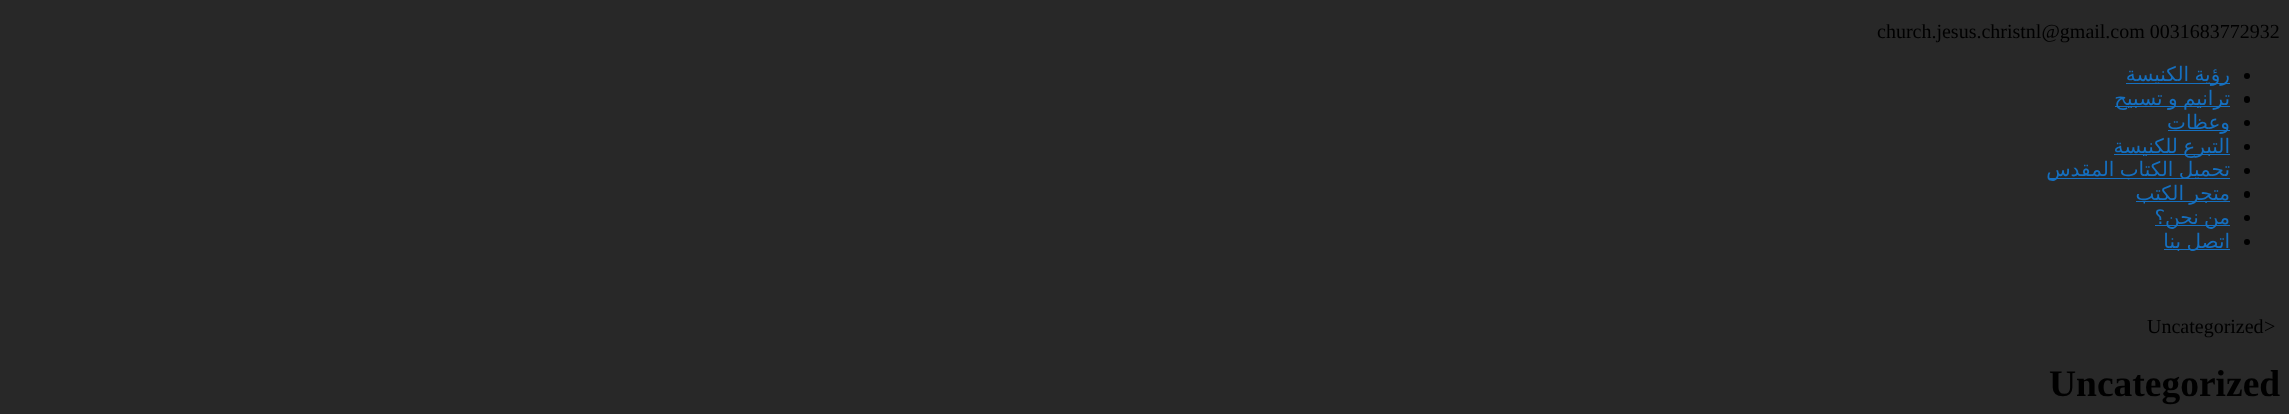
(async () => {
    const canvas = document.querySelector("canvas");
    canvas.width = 2289;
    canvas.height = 414;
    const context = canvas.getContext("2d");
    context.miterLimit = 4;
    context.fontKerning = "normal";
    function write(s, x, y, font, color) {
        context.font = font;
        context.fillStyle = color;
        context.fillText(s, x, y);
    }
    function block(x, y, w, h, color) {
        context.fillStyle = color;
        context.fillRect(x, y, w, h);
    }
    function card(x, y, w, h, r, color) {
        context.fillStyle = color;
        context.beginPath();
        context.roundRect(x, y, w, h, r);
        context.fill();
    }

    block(0, 0, 2289, 414, "rgb(40, 40, 40)");
    write("church.jesus.christnl@gmail.com 0031683772932", 1877, 38, "20px Liberation Serif", "rgb(0, 0, 0)");
    context.beginPath();
    context.arc(2247, 76, 3, 0, Math.PI * 2);
    context.fill();
    block(2126, 83, 104, 1, "rgb(21, 111, 191)");
    context.wordSpacing = "-1px";
    context.direction = "rtl";
    write("رؤية الكنيسة", 2230, 81, "20px DejaVu Sans", "rgb(21, 111, 191)");
    card(2244, 96, 6, 7, 3, "rgb(0, 0, 0)");
    block(2115, 106, 115, 1, "rgb(21, 111, 191)");
    write("ترانيم و تسبيح", 2230, 105, "20px DejaVu Sans", "rgb(21, 111, 191)");
    context.fillStyle = "rgb(0, 0, 0)";
    context.beginPath();
    context.arc(2247, 123, 3, 0, Math.PI * 2);
    context.fill();
    block(2168, 130, 62, 1, "rgb(21, 111, 191)");
    context.wordSpacing = "0px";
    write("وعظات", 2230, 129, "20px DejaVu Sans", "rgb(21, 111, 191)");
    context.fillStyle = "rgb(0, 0, 0)";
    context.beginPath();
    context.arc(2247, 147, 3, 0, Math.PI * 2);
    context.fill();
    block(2114, 154, 116, 1, "rgb(21, 111, 191)");
    context.wordSpacing = "-1px";
    write("التبرع للكنيسة", 2230, 153, "20px DejaVu Sans", "rgb(21, 111, 191)");
    context.fillStyle = "rgb(0, 0, 0)";
    context.beginPath();
    context.arc(2247, 171, 3, 0, Math.PI * 2);
    context.fill();
    block(2048, 178, 182, 1, "rgb(21, 111, 191)");
    write("تحميل الكتاب المقدس", 2230, 176, "20px DejaVu Sans", "rgb(21, 111, 191)");
    card(2244, 191, 6, 7, 3, "rgb(0, 0, 0)");
    block(2136, 201, 94, 1, "rgb(21, 111, 191)");
    write("متجر الكتب", 2230, 200, "20px DejaVu Sans", "rgb(21, 111, 191)");
    context.fillStyle = "rgb(0, 0, 0)";
    context.beginPath();
    context.arc(2247, 218, 3, 0, Math.PI * 2);
    context.fill();
    block(2155, 225, 75, 1, "rgb(21, 111, 191)");
    write("من نحن؟", 2230, 224, "20px DejaVu Sans", "rgb(21, 111, 191)");
    context.fillStyle = "rgb(0, 0, 0)";
    context.beginPath();
    context.arc(2247, 242, 3, 0, Math.PI * 2);
    context.fill();
    block(2164, 249, 66, 1, "rgb(21, 111, 191)");
    write("اتصل بنا", 2230, 248, "20px DejaVu Sans", "rgb(21, 111, 191)");
    context.wordSpacing = "0px";
    context.direction = "ltr";
    write(">", 2264, 333, "20px Liberation Serif", "rgb(0, 0, 0)");
    write("Uncategorized", 2147, 333, "20px Liberation Serif", "rgb(0, 0, 0)");
    write("Uncategorized", 2049, 396, "bold 37.5px Liberation Serif", "rgb(0, 0, 0)");
})();
